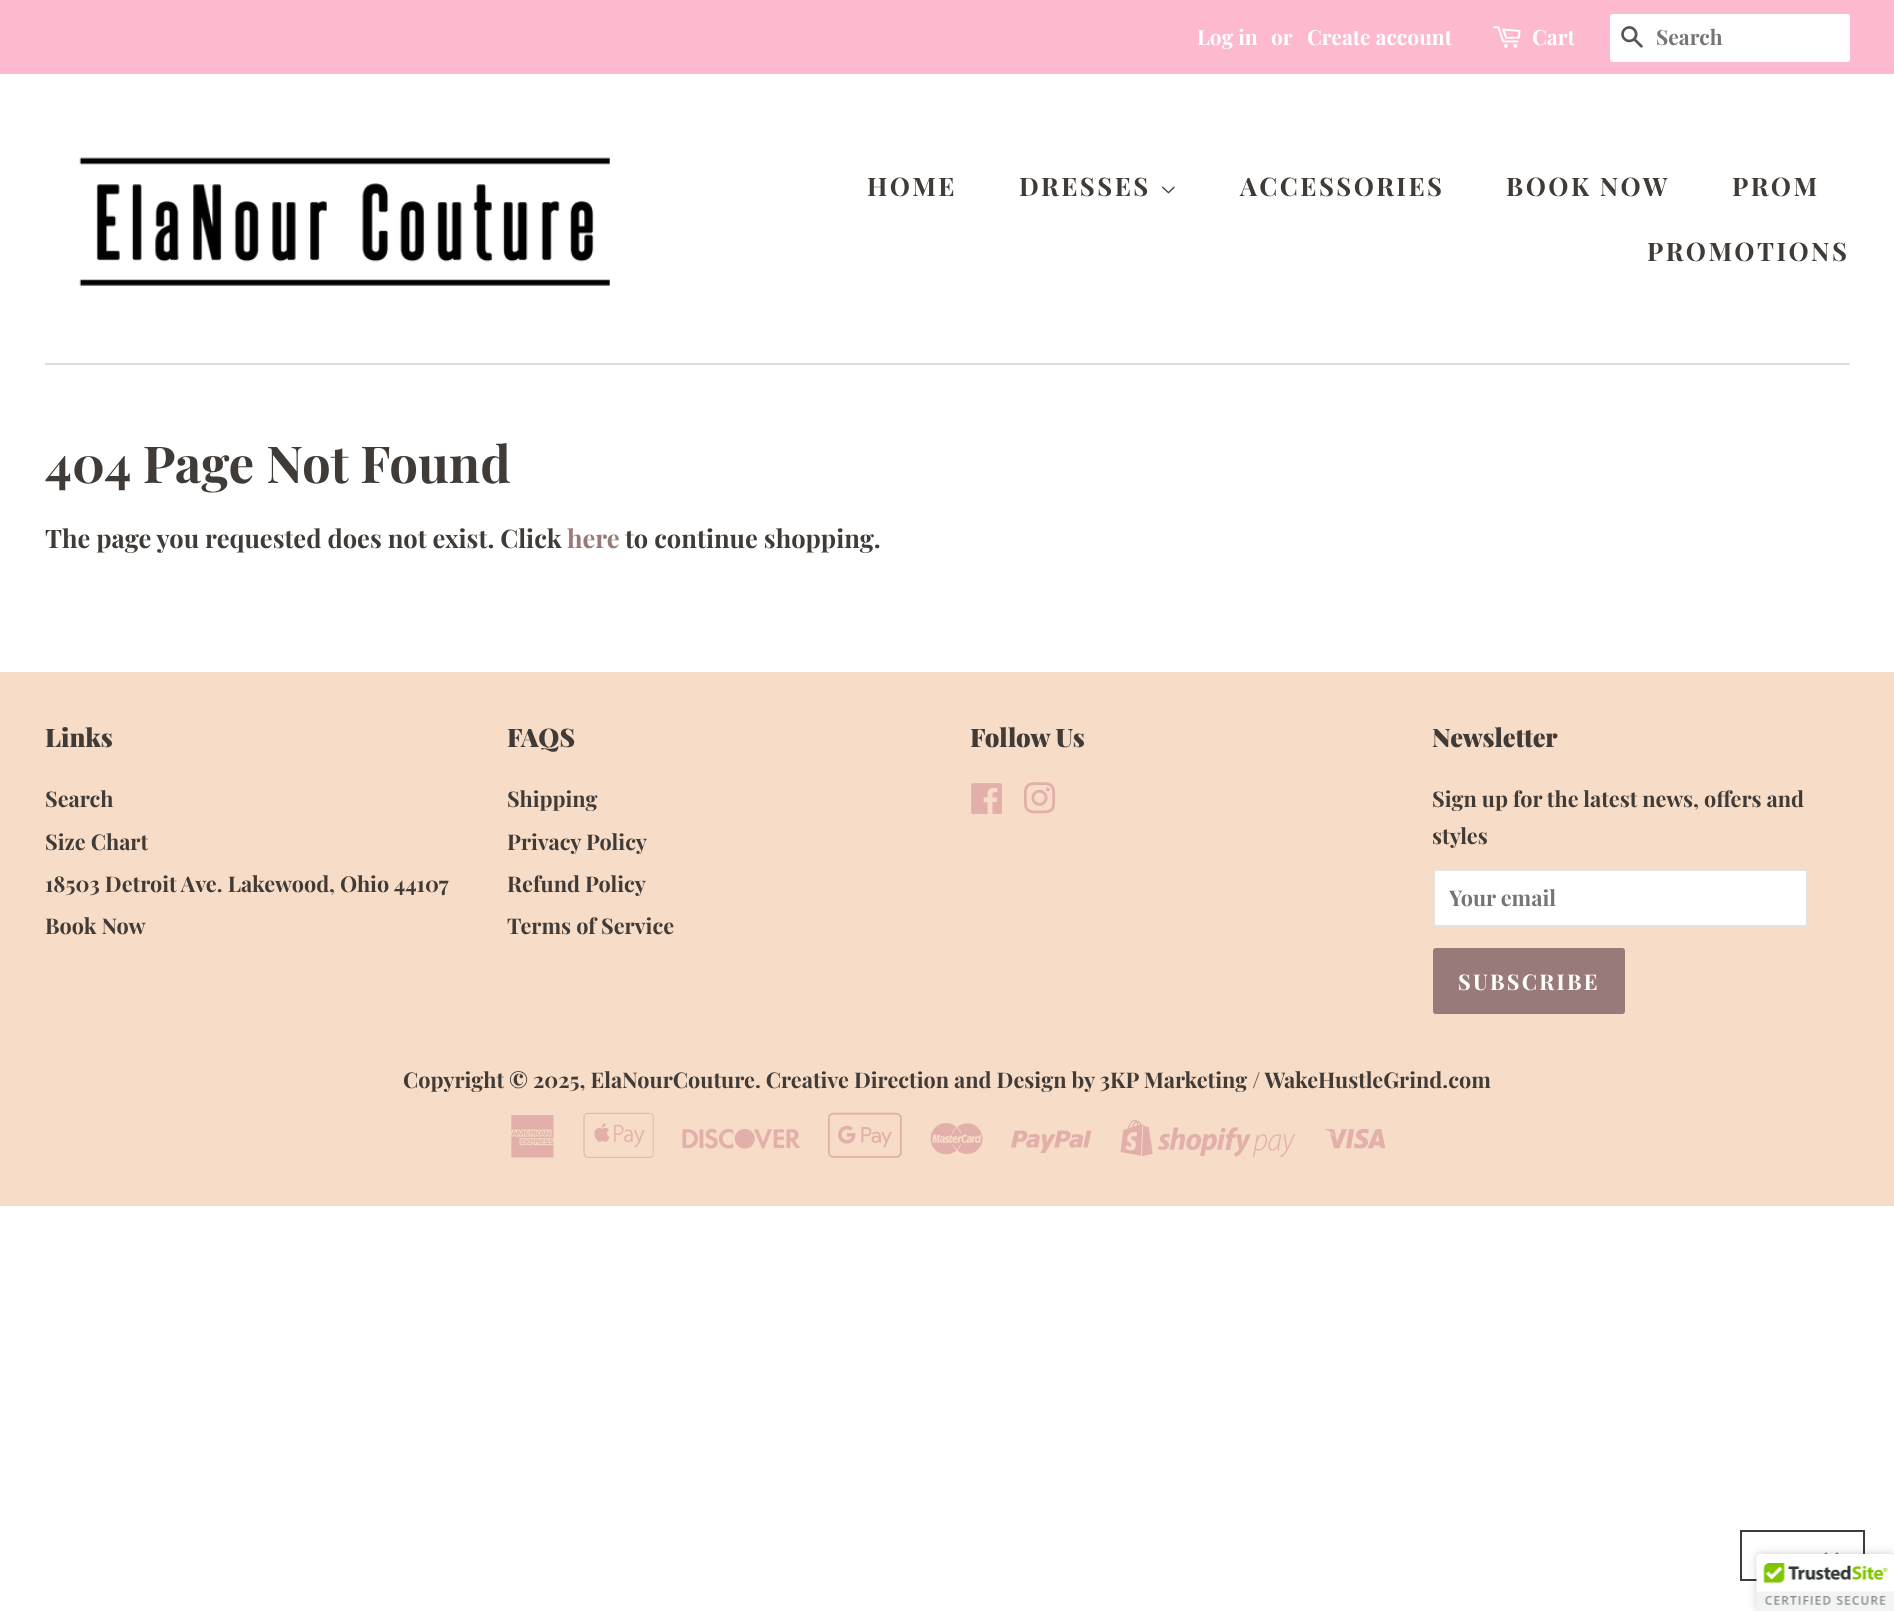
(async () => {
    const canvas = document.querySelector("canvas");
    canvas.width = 1894;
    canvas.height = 1611;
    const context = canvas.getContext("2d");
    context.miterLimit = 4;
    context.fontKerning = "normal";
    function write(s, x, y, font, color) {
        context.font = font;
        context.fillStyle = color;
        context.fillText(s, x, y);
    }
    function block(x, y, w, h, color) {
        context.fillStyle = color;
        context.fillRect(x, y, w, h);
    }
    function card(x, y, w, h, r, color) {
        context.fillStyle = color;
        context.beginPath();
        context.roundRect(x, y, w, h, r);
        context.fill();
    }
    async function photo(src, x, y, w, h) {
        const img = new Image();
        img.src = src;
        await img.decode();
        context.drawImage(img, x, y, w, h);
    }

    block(0, 0, 1894, 1611, "rgb(255, 255, 255)");
    block(0, 0, 1894, 74, "rgb(253, 185, 205)");
    write("Log in", 1197, 45, "bold 21px Playfair Display", "rgb(255, 255, 255)");
    write("or", 1271, 45, "bold 21px Playfair Display", "rgb(255, 255, 255)");
    write("Create account", 1307, 45, "bold 21px Playfair Display", "rgb(255, 255, 255)");
    await photo("media/1.png", 1493, 26, 28, 22);
    write("Cart", 1532, 45, "bold 21px Playfair Display", "rgb(255, 255, 255)");
    card(1610, 14, 240, 48, 3, "rgb(255, 255, 255)");
    await photo("media/2.png", 1621, 26, 22, 22);
    write("Search", 1656, 45, "bold 21px Playfair Display", "rgb(117, 117, 117)");
    block(45, 363, 1805, 2, "rgb(221, 221, 221)");
    await photo("media/3.png", 79, 157, 531, 129);
    context.letterSpacing = "2.5px";
    write("HOME", 867, 196, "bold 25.5px Playfair Display", "rgb(64, 59, 55)");
    write("DRESSES", 1019, 196, "bold 25.5px Playfair Display", "rgb(64, 59, 55)");
    await photo("media/4.png", 1162, 186, 13, 8);
    write("ACCESSORIES", 1240, 196, "bold 25.5px Playfair Display", "rgb(64, 59, 55)");
    write("BOOK NOW", 1506, 196, "bold 25.5px Playfair Display", "rgb(64, 59, 55)");
    write("PROM", 1732, 196, "bold 25.5px Playfair Display", "rgb(64, 59, 55)");
    write("PROMOTIONS", 1647, 261, "bold 25.5px Playfair Display", "rgb(64, 59, 55)");
    context.letterSpacing = "0px";
    write("404 Page Not Found", 45, 483, "bold 51px Playfair Display", "rgb(64, 59, 55)");
    write("The page you requested does not exist. Click", 45, 548, "bold 25.5px Playfair Display", "rgb(64, 59, 55)");
    write("here", 567, 548, "bold 25.5px Playfair Display", "rgb(152, 123, 121)");
    write("to continue shopping.", 625, 548, "bold 25.5px Playfair Display", "rgb(64, 59, 55)");
    block(0, 672, 1894, 534, "rgb(247, 220, 199)");
    write("Links", 45, 747, "900 25.5px Playfair Display", "rgb(64, 59, 55)");
    write("Search", 45, 807, "bold 21.67px Playfair Display", "rgb(64, 59, 55)");
    write("Size Chart", 45, 850, "bold 21.67px Playfair Display", "rgb(64, 59, 55)");
    write("18503 Detroit Ave. Lakewood, Ohio 44107", 45, 892, "bold 21.67px Playfair Display", "rgb(64, 59, 55)");
    write("Book Now", 45, 934, "bold 21.67px Playfair Display", "rgb(64, 59, 55)");
    write("FAQS", 507, 747, "900 25.5px Playfair Display", "rgb(64, 59, 55)");
    write("Shipping", 507, 807, "bold 21.67px Playfair Display", "rgb(64, 59, 55)");
    write("Privacy Policy", 507, 850, "bold 21.67px Playfair Display", "rgb(64, 59, 55)");
    write("Refund Policy", 507, 892, "bold 21.67px Playfair Display", "rgb(64, 59, 55)");
    write("Terms of Service", 507, 934, "bold 21.67px Playfair Display", "rgb(64, 59, 55)");
    write("Follow Us", 970, 747, "900 25.5px Playfair Display", "rgb(64, 59, 55)");
    await photo("media/5.png", 971, 783, 31, 31);
    await photo("media/6.png", 1024, 782, 32, 32);
    write("Newsletter", 1432, 747, "900 25.5px Playfair Display", "rgb(64, 59, 55)");
    write("Sign up for the latest news, offers and", 1432, 807, "bold 21.67px Playfair Display", "rgb(64, 59, 55)");
    write("styles", 1432, 844, "bold 21.67px Playfair Display", "rgb(64, 59, 55)");
    card(1433, 869, 375, 58, 3, "rgb(255, 255, 255)");
    context.beginPath();
    context.roundRect(1434, 870, 373, 56, 2);
    context.strokeStyle = "rgba(64, 59, 55, 0.15)";
    context.lineWidth = 2;
    context.stroke();
    write("Your email", 1449, 906, "bold 21.67px Playfair Display", "rgb(117, 117, 117)");
    card(1433, 948, 192, 66, 3, "rgb(152, 123, 121)");
    context.letterSpacing = "2.25px";
    write("SUBSCRIBE", 1458, 990, "bold 21.67px Playfair Display", "rgb(255, 255, 255)");
    context.letterSpacing = "0px";
    write("Copyright © 2025, ElaNourCouture. Creative Direction and Design by 3KP Marketing / WakeHustleGrind.com", 403, 1088, "bold 21.67px Playfair Display", "rgb(64, 59, 55)");
    await photo("media/7.png", 511, 1115, 43, 43);
    await photo("media/8.png", 583, 1112, 71, 46);
    await photo("media/9.png", 682, 1128, 118, 21);
    await photo("media/10.png", 828, 1112, 74, 46);
    await photo("media/11.png", 930, 1123, 53, 32);
    await photo("media/12.png", 1011, 1130, 81, 23);
    await photo("media/13.png", 1120, 1119, 175, 38);
    await photo("media/14.png", 1324, 1128, 62, 21);
    context.strokeStyle = "rgb(64, 59, 55)";
    context.strokeRect(1741, 1531, 123, 49);
    context.fillStyle = "rgb(144, 144, 144)";
    context.beginPath();
    context.moveTo(1837, 1552);
    context.lineTo(1839, 1554);
    context.lineTo(1831.5, 1561.5);
    context.lineTo(1829.5, 1559.5);
    context.closePath();
    context.fill();
    context.beginPath();
    context.moveTo(1826, 1552);
    context.lineTo(1833.5, 1559.5);
    context.lineTo(1831.5, 1561.5);
    context.lineTo(1824, 1554);
    context.closePath();
    context.fill();
    context.fillStyle = "rgba(0, 0, 0, 0.2)";
    context.filter = "blur(4px)";
    context.beginPath();
    context.roundRect(1757, 1554, 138, 57, 3);
    context.fill();
    context.filter = "none";
    context.fillStyle = "rgb(255, 255, 255)";
    context.beginPath();
    context.moveTo(1760, 1554);
    context.lineTo(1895, 1554);
    context.lineTo(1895, 1611);
    context.lineTo(1757, 1611);
    context.lineTo(1757, 1557);
    context.bezierCurveTo(1757, 1555.5, 1758.5, 1554, 1760, 1554);
    context.closePath();
    context.fill();
    await photo("media/15.png", 1756, 1554, 138, 57);
})();
